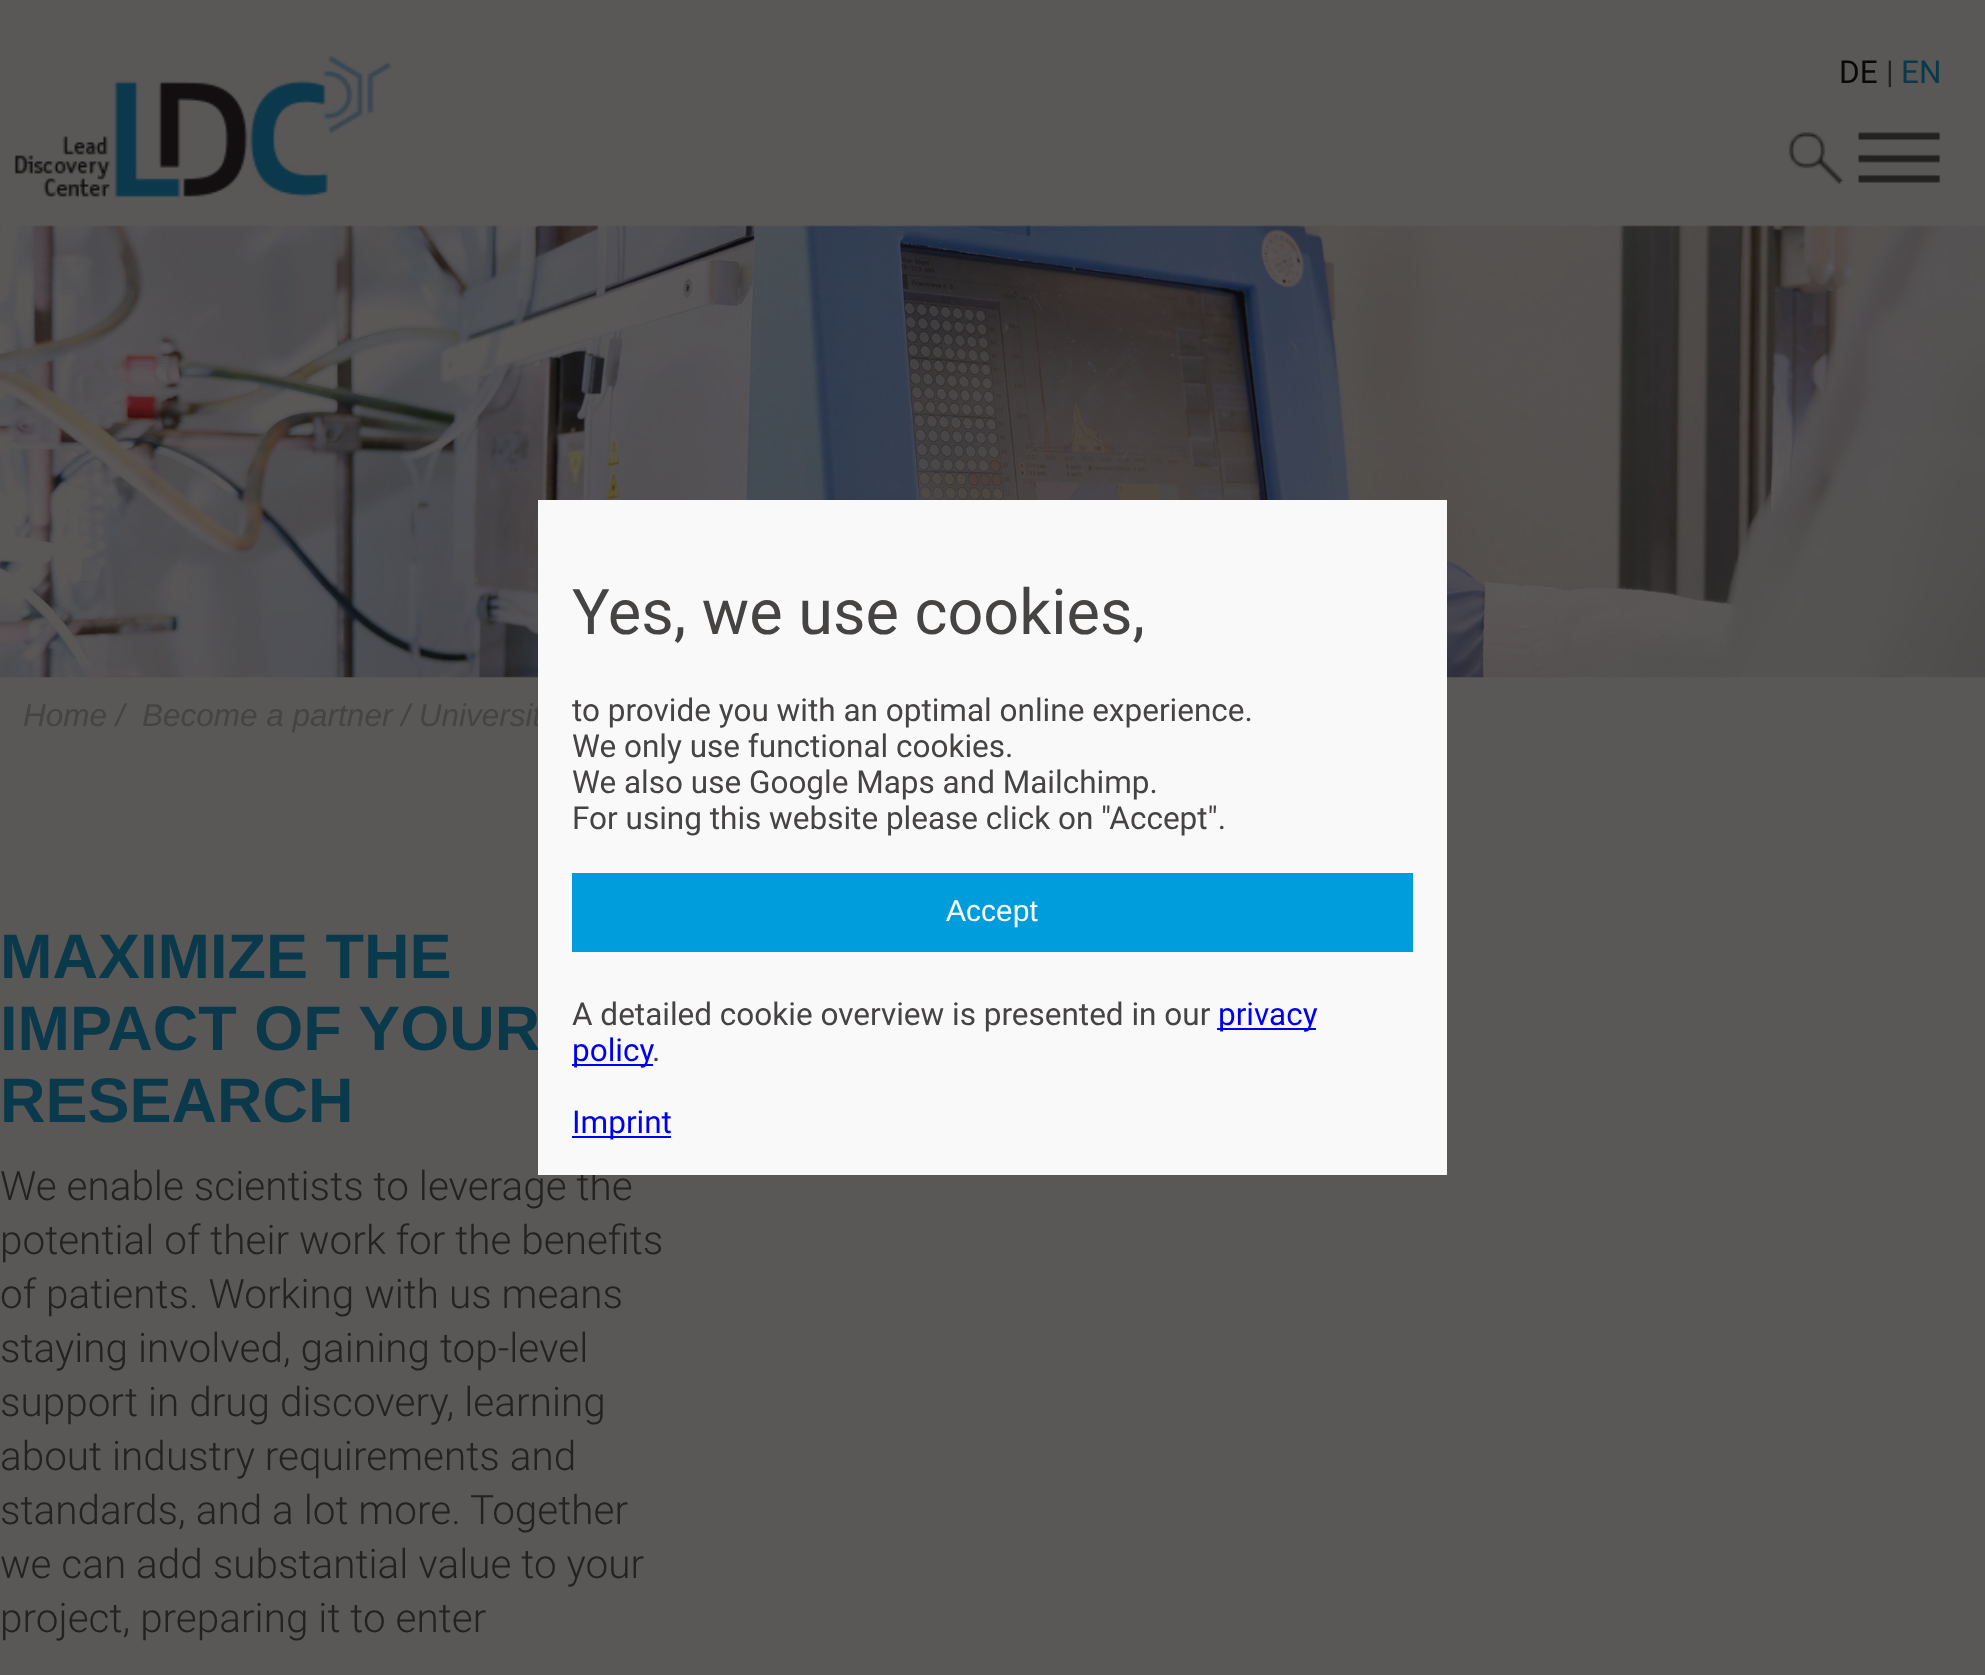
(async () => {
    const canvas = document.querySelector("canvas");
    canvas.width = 1985;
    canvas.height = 1675;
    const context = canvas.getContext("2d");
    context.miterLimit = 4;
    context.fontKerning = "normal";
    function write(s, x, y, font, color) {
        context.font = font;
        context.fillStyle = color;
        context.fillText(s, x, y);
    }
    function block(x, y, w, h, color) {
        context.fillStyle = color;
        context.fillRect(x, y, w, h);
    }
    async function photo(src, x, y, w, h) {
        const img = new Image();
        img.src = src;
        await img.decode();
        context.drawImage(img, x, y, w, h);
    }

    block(0, 0, 1985, 1675, "rgb(90, 87, 87)");
    await photo("media/1.png", 10, 56, 387, 142);
    write("DE", 1839, 83, "31.5px Roboto", "rgb(11, 8, 8)");
    write("|", 1886, 83, "31.5px Roboto", "rgb(36, 33, 33)");
    write("EN", 1901, 83, "31.5px Roboto", "rgb(11, 57, 76)");
    await photo("media/2.png", 1788, 132, 55, 52);
    await photo("media/3.png", 1856, 132, 85, 51);
    await photo("media/4.png", 0, 225, 1985, 453);
    write("Home /", 23, 726, "italic 31.5px Liberation Sans", "rgb(70, 67, 67)");
    write("Become a partner / Universit", 142, 726, "italic 31.5px Liberation Sans", "rgb(70, 67, 67)");
    write("MAXIMIZE THE", 0, 978, "bold 63px Liberation Sans", "rgb(11, 57, 76)");
    write("IMPACT OF YOUR", 0, 1050, "bold 63px Liberation Sans", "rgb(11, 57, 76)");
    write("RESEARCH", 0, 1122, "bold 63px Liberation Sans", "rgb(11, 57, 76)");
    write("We enable scientists to leverage the", 0, 1200, "300 40.5px Roboto", "rgb(36, 33, 33)");
    write("potential of their work for the benefits", 0, 1254, "300 40.5px Roboto", "rgb(36, 33, 33)");
    write("of patients. Working with us means", 0, 1308, "300 40.5px Roboto", "rgb(36, 33, 33)");
    write("staying involved, gaining top-level", 0, 1362, "300 40.5px Roboto", "rgb(36, 33, 33)");
    write("support in drug discovery, learning", 0, 1416, "300 40.5px Roboto", "rgb(36, 33, 33)");
    write("about industry requirements and", 0, 1470, "300 40.5px Roboto", "rgb(36, 33, 33)");
    write("standards, and a lot more. Together", 0, 1524, "300 40.5px Roboto", "rgb(36, 33, 33)");
    write("we can add substantial value to your", 0, 1578, "300 40.5px Roboto", "rgb(36, 33, 33)");
    write("project, preparing it to enter", 0, 1632, "300 40.5px Roboto", "rgb(36, 33, 33)");
    block(538, 500, 909, 675, "rgb(249, 249, 249)");
    write("Yes, we use cookies,", 572, 634, "63px Roboto", "rgb(70, 67, 67)");
    context.save();
    context.beginPath();
    context.rect(572, 533, 841, 608);
    context.clip();
    write("to provide you with an optimal online experience.", 572, 721, "31.5px Roboto", "rgb(70, 67, 67)");
    context.restore();
    write("We only use functional cookies.", 572, 757, "31.5px Roboto", "rgb(70, 67, 67)");
    write("We also use Google Maps and Mailchimp.", 572, 793, "31.5px Roboto", "rgb(70, 67, 67)");
    write("For using this website please click on \"Accept\".", 572, 829, "31.5px Roboto", "rgb(70, 67, 67)");
    block(572, 873, 841, 79, "rgb(0, 157, 220)");
    write("Accept", 946, 921, "30px Liberation Sans", "rgb(255, 255, 255)");
    write("A detailed cookie overview is presented in our", 572, 1025, "31.5px Roboto", "rgb(70, 67, 67)");
    block(1217, 1028, 99, 2, "rgb(0, 0, 238)");
    write("privacy", 1218, 1025, "31.5px Roboto", "rgb(0, 0, 238)");
    block(572, 1064, 81, 2, "rgb(0, 0, 238)");
    write("policy", 572, 1061, "31.5px Roboto", "rgb(0, 0, 238)");
    write(".", 652, 1061, "31.5px Roboto", "rgb(70, 67, 67)");
    block(572, 1136, 99, 2, "rgb(0, 0, 238)");
    write("Imprint", 572, 1133, "31.5px Roboto", "rgb(0, 0, 238)");
})();
